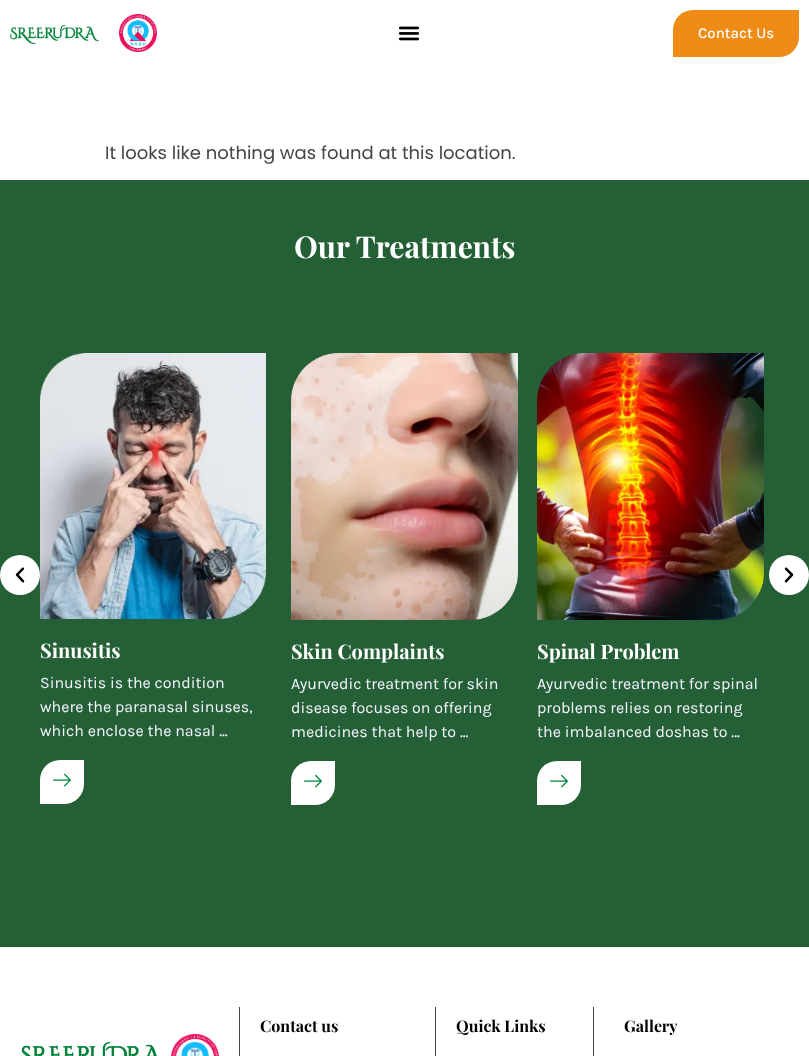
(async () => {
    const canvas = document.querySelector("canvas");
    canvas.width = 809;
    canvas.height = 1056;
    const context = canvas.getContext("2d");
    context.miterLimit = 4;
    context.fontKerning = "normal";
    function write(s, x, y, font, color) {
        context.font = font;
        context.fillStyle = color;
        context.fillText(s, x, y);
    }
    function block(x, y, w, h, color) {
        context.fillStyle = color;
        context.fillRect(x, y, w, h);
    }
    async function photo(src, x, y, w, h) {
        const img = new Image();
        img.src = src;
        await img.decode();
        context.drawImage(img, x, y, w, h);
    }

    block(0, 0, 809, 1056, "rgb(255, 255, 255)");
    await photo("media/1.png", 10, 25, 89, 19);
    await photo("media/2.png", 119, 14, 38, 38);
    await photo("media/3.png", 398, 26, 22, 15);
    context.fillStyle = "rgb(239, 140, 23)";
    context.beginPath();
    context.roundRect(673, 10, 126, 47, [20, 0, 20, 0]);
    context.fill();
    write("Contact Us", 698, 38, "500 15px Karla", "rgb(255, 255, 255)");
    write("It looks like nothing was found at this location.", 105, 159, "18px Poppins", "rgb(69, 69, 69)");
    block(0, 180, 809, 767, "rgb(37, 95, 54)");
    write("Our Treatments", 294, 258, "bold 30px Playfair Display", "rgb(255, 255, 255)");
    context.beginPath();
    context.arc(20, 575, 20, 0, Math.PI * 2);
    context.fill();
    await photo("media/4.png", 15, 567, 10, 16);
    context.beginPath();
    context.arc(789, 575, 20, 0, Math.PI * 2);
    context.fill();
    await photo("media/5.png", 784, 567, 10, 16);
    await photo("media/6.png", 40, 353, 226, 266);
    write("Sinusitis", 40, 658, "bold 20px Playfair Display", "rgb(255, 255, 255)");
    write("Sinusitis is the condition", 40, 688, "16px Karla", "rgb(244, 247, 255)");
    write("where the paranasal sinuses,", 40, 712, "16px Karla", "rgb(244, 247, 255)");
    write("which enclose the nasal ...", 40, 736, "16px Karla", "rgb(244, 247, 255)");
    context.fillStyle = "rgb(255, 255, 255)";
    context.beginPath();
    context.roundRect(40, 760, 44, 44, [20, 0, 20, 0]);
    context.fill();
    await photo("media/7.png", 53, 773, 18, 14);
    await photo("media/8.png", 291, 353, 227, 267);
    write("Skin Complaints", 291, 659, "bold 20px Playfair Display", "rgb(255, 255, 255)");
    write("Ayurvedic treatment for skin", 291, 689, "16px Karla", "rgb(244, 247, 255)");
    write("disease focuses on offering", 291, 713, "16px Karla", "rgb(244, 247, 255)");
    write("medicines that help to ...", 291, 737, "16px Karla", "rgb(244, 247, 255)");
    context.fillStyle = "rgb(255, 255, 255)";
    context.beginPath();
    context.roundRect(291, 761, 44, 44, [20, 0, 20, 0]);
    context.fill();
    await photo("media/7.png", 304, 774, 18, 14);
    await photo("media/9.png", 537, 353, 227, 267);
    write("Spinal Problem", 537, 659, "bold 20px Playfair Display", "rgb(255, 255, 255)");
    write("Ayurvedic treatment for spinal", 537, 689, "16px Karla", "rgb(244, 247, 255)");
    write("problems relies on restoring", 537, 713, "16px Karla", "rgb(244, 247, 255)");
    write("the imbalanced doshas to ...", 537, 737, "16px Karla", "rgb(244, 247, 255)");
    context.fillStyle = "rgb(255, 255, 255)";
    context.beginPath();
    context.roundRect(537, 761, 44, 44, [20, 0, 20, 0]);
    context.fill();
    await photo("media/7.png", 550, 774, 18, 14);
    block(435, 1007, 1, 49, "rgb(69, 69, 69)");
    block(239, 1007, 1, 49, "rgb(69, 69, 69)");
    write("Contact us", 260, 1032, "bold 16px Playfair Display", "rgb(0, 0, 0)");
    block(593, 1007, 1, 49, "rgb(69, 69, 69)");
    write("Quick Links", 456, 1032, "bold 16px Playfair Display", "rgb(0, 0, 0)");
    write("Gallery", 624, 1032, "bold 16px Playfair Display", "rgb(0, 0, 0)");
    await photo("media/10.png", 21, 1042, 136, 14);
    await photo("media/11.png", 171, 1034, 48, 22);
})();
